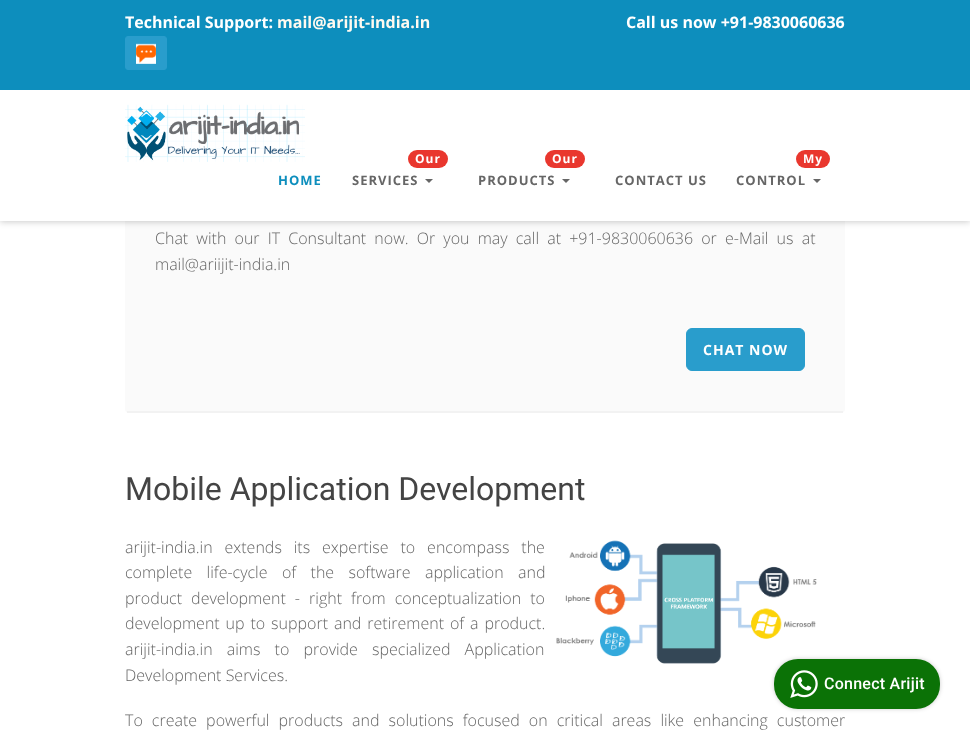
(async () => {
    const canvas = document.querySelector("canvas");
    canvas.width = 970;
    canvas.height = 739;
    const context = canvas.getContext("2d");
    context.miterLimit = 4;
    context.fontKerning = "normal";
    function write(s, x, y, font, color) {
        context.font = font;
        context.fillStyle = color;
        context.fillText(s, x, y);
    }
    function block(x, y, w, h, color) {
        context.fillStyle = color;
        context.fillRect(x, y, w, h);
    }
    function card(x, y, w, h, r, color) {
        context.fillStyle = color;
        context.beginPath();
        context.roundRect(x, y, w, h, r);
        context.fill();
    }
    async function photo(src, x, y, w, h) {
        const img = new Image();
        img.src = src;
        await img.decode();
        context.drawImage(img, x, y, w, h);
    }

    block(0, 0, 970, 739, "rgb(255, 255, 255)");
    card(125, 131, 720, 282, 4, "rgb(250, 250, 250)");
    context.fillStyle = "rgba(0, 0, 0, 0.2)";
    context.filter = "blur(3px)";
    context.beginPath();
    context.rect(0, 1, 970, 221);
    context.fill();
    context.filter = "none";
    block(0, 90, 970, 131, "rgb(255, 255, 255)");
    block(0, 0, 970, 90, "rgb(13, 142, 189)");
    write("Technical Support:", 125, 28, "bold 16px Open Sans", "rgb(255, 255, 255)");
    write("mail@arijit-india.in", 277, 28, "bold 16px Open Sans", "rgb(255, 250, 240)");
    context.fillStyle = "rgb(41, 157, 204)";
    context.beginPath();
    context.roundRect(125.5, 36.5, 41, 33, 2.5);
    context.fill();
    context.strokeStyle = "rgb(41, 157, 204)";
    context.stroke();
    await photo("media/1.png", 136, 43, 20, 21);
    write("Call us now +91-9830060636", 626, 28, "bold 16px Open Sans", "rgb(255, 255, 255)");
    await photo("media/2.png", 125, 104, 180, 58);
    context.letterSpacing = "1px";
    write("HOME", 278, 185, "bold 13px Open Sans", "rgb(13, 142, 189)");
    card(408, 150, 40, 18, 9, "rgb(233, 55, 46)");
    write("Our", 415, 163, "bold 12px Open Sans", "rgb(255, 255, 255)");
    write("SERVICES", 352, 185, "bold 13px Open Sans", "rgb(102, 102, 102)");
    context.beginPath();
    context.moveTo(425, 179);
    context.lineTo(433, 179);
    context.lineTo(429, 183);
    context.closePath();
    context.fill();
    card(545, 150, 40, 18, 9, "rgb(233, 55, 46)");
    write("Our", 552, 163, "bold 12px Open Sans", "rgb(255, 255, 255)");
    write("PRODUCTS", 478, 185, "bold 13px Open Sans", "rgb(102, 102, 102)");
    context.beginPath();
    context.moveTo(562, 179);
    context.lineTo(570, 179);
    context.lineTo(566, 183);
    context.closePath();
    context.fill();
    write("CONTACT US", 615, 185, "bold 13px Open Sans", "rgb(102, 102, 102)");
    card(796, 150, 34, 18, 9, "rgb(233, 55, 46)");
    write("My", 803, 163, "bold 12px Open Sans", "rgb(255, 255, 255)");
    write("CONTROL", 736, 185, "bold 13px Open Sans", "rgb(102, 102, 102)");
    context.beginPath();
    context.moveTo(813, 179);
    context.lineTo(821, 179);
    context.lineTo(817, 183);
    context.closePath();
    context.fill();
    block(127, 411, 716, 2, "rgb(242, 242, 242)");
    context.letterSpacing = "0px";
    context.wordSpacing = "4px";
    write("Chat with our IT Consultant now. Or you may call at +91-9830060636 or e-Mail us at", 155, 244, "300 16px Open Sans", "rgb(102, 102, 102)");
    context.wordSpacing = "0px";
    write("mail@ariijit-india.in", 155, 270, "300 16px Open Sans", "rgb(102, 102, 102)");
    context.fillStyle = "rgb(41, 157, 204)";
    context.beginPath();
    context.roundRect(686.5, 328.5, 118, 42, 5.5);
    context.fill();
    context.stroke();
    context.letterSpacing = "1px";
    write("CHAT NOW", 703, 355, "bold 14px Open Sans", "rgb(255, 255, 255)");
    context.letterSpacing = "0px";
    write("Mobile Application Development", 125, 500, "32px Roboto", "rgb(68, 68, 68)");
    context.wordSpacing = "7.75px";
    write("arijit-india.in extends its expertise to encompass the", 125, 553, "300 16px Open Sans", "rgb(102, 102, 102)");
    await photo("media/3.png", 556, 540, 261, 124);
    context.wordSpacing = "10.25px";
    write("complete life-cycle of the software application and", 125, 578, "300 16px Open Sans", "rgb(102, 102, 102)");
    context.wordSpacing = "4.9px";
    write("product development - right from conceptualization to", 125, 604, "300 16px Open Sans", "rgb(102, 102, 102)");
    context.wordSpacing = "1.75px";
    write("development up to support and retirement of a product.", 125, 629, "300 16px Open Sans", "rgb(102, 102, 102)");
    context.wordSpacing = "10px";
    write("arijit-india.in aims to provide specialized Application", 125, 655, "300 16px Open Sans", "rgb(102, 102, 102)");
    context.wordSpacing = "0px";
    write("Development Services.", 125, 681, "300 16px Open Sans", "rgb(102, 102, 102)");
    context.wordSpacing = "4.9px";
    write("To create powerful products and solutions focused on critical areas like enhancing customer", 125, 726, "300 16px Open Sans", "rgb(102, 102, 102)");
    context.fillStyle = "rgba(0, 0, 0, 0.2)";
    context.filter = "blur(2px)";
    context.beginPath();
    context.roundRect(774, 659, 166, 50, 24);
    context.fill();
    context.filter = "none";
    card(774, 659, 166, 50, 24, "rgb(11, 114, 6)");
    await photo("media/4.png", 790, 670, 28, 28);
    context.letterSpacing = "0.25px";
    context.wordSpacing = "0px";
    write("Connect Arijit", 824, 689, "500 16px Roboto", "rgb(255, 255, 255)");
})();
